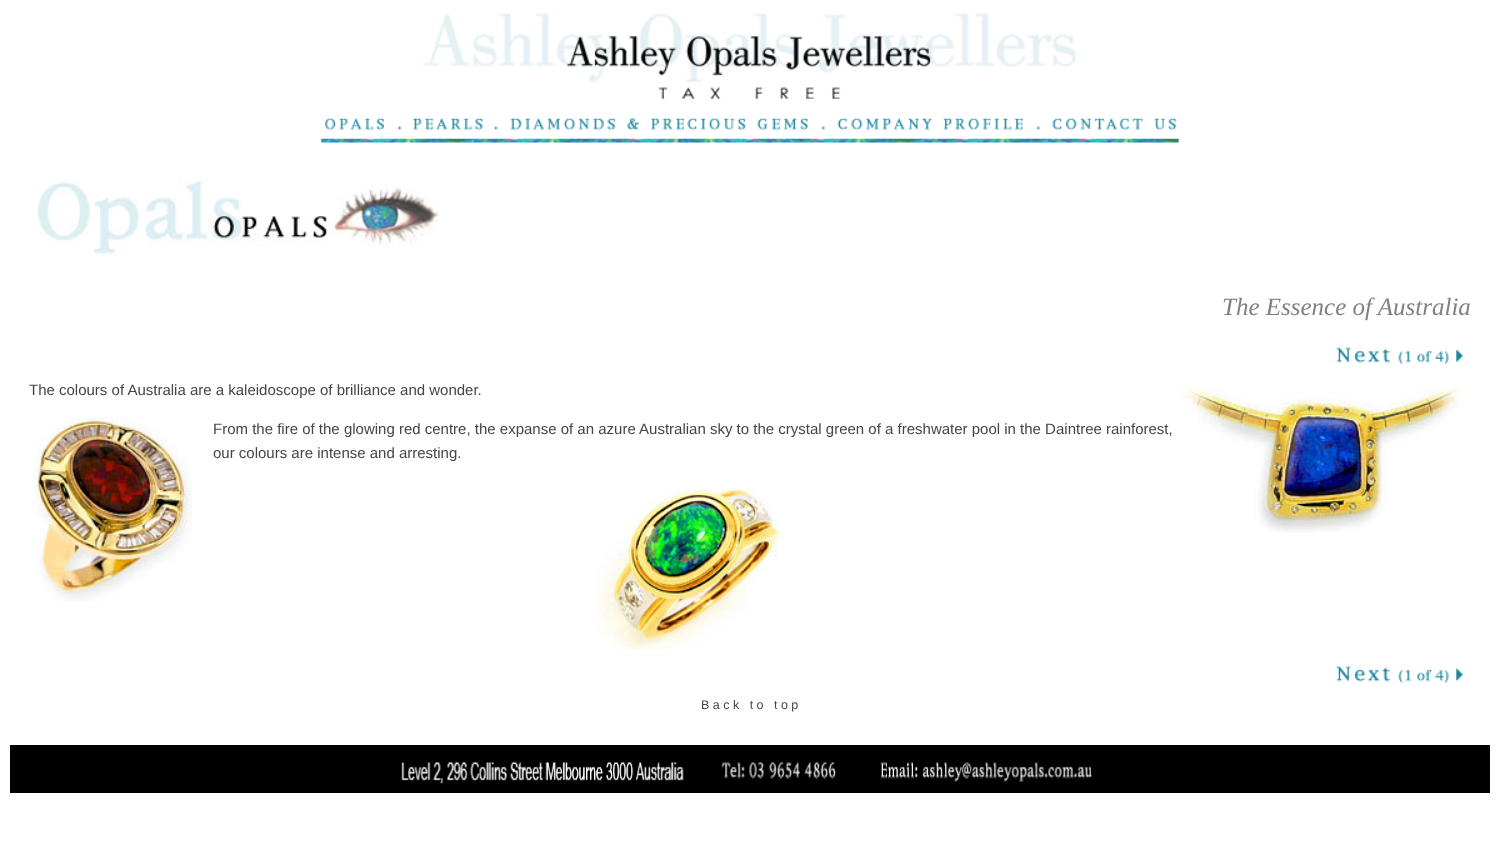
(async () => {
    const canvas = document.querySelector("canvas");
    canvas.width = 1499;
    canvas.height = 863;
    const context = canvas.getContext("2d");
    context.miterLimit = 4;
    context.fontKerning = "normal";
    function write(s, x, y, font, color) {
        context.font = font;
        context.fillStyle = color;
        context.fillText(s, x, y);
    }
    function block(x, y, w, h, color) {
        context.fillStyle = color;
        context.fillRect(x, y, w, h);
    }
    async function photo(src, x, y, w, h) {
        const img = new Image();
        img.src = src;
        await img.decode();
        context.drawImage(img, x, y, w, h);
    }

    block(0, 0, 1499, 863, "rgb(255, 255, 255)");
    await photo("media/1.png", 423, 13, 653, 86);
    await photo("media/2.png", 324, 118, 60, 13);
    await photo("media/3.png", 397, 126, 5, 5);
    await photo("media/4.png", 412, 118, 71, 13);
    await photo("media/5.png", 493, 126, 5, 5);
    await photo("media/6.png", 510, 117, 298, 14);
    await photo("media/7.png", 821, 126, 5, 5);
    await photo("media/8.png", 837, 118, 186, 13);
    await photo("media/7.png", 1036, 126, 5, 5);
    await photo("media/9.png", 1052, 118, 125, 13);
    await photo("media/10.png", 321, 138, 858, 5);
    await photo("media/11.png", 36, 177, 403, 79);
    write("The Essence of Australia", 1222, 315, "italic 25px Liberation Serif", "rgb(128, 128, 128)");
    await photo("media/12.png", 1336, 347, 127, 17);
    write("The colours of Australia are a kaleidoscope of brilliance and wonder.", 29, 395, "15px Liberation Sans", "rgb(69, 69, 69)");
    await photo("media/13.png", 1179, 385, 288, 148);
    await photo("media/14.png", 34, 417, 158, 185);
    write("From the fire of the glowing red centre, the expanse of an azure Australian sky to the crystal green of a freshwater pool in the Daintree rainforest,", 213, 434, "15px Liberation Sans", "rgb(69, 69, 69)");
    write("our colours are intense and arresting.", 213, 458, "15px Liberation Sans", "rgb(69, 69, 69)");
    await photo("media/15.png", 596, 487, 184, 163);
    await photo("media/16.png", 1336, 666, 127, 17);
    write("B a c k   t o   t o p", 701, 709, "12.5px Liberation Sans", "rgb(69, 69, 69)");
    block(10, 745, 1480, 48, "rgb(0, 0, 0)");
    await photo("media/17.png", 401, 762, 691, 22);
})();
